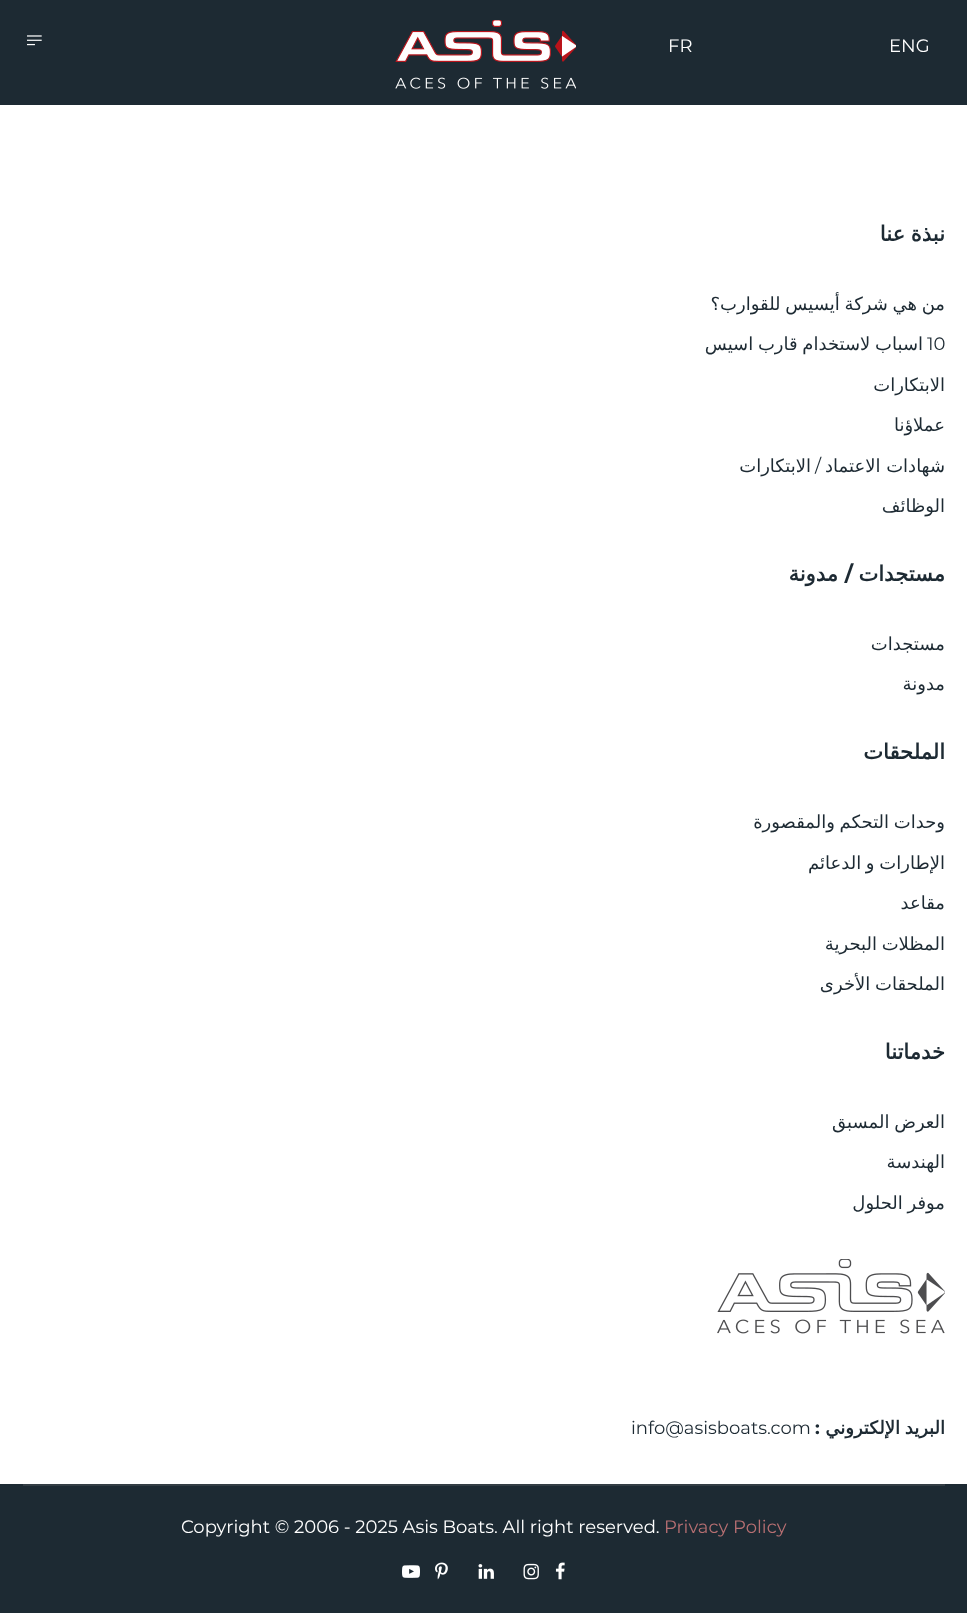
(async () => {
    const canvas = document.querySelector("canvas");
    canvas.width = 967;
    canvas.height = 1613;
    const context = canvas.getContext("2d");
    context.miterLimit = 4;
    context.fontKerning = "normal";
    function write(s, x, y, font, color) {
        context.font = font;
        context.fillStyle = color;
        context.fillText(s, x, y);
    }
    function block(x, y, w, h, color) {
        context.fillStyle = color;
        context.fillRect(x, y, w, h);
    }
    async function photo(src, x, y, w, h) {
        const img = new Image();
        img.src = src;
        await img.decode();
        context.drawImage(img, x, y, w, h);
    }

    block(0, 0, 967, 1613, "rgb(255, 255, 255)");
    block(0, 0, 967, 105, "rgb(29, 42, 51)");
    write("ENG", 889, 52, "18px Montserrat", "rgb(255, 255, 255)");
    write("FR", 668, 52, "18px Montserrat", "rgb(255, 255, 255)");
    await photo("media/1.png", 395, 20, 181, 69);
    await photo("media/2.png", 27, 35, 15, 11);
    context.wordSpacing = "-1px";
    context.direction = "rtl";
    write("نبذة عنا", 945, 241, "bold 21px DejaVu Sans", "rgb(29, 42, 51)");
    write("من هي شركة أيسيس للقوارب؟", 945, 310, "18px DejaVu Sans", "rgb(29, 42, 51)");
    context.wordSpacing = "0px";
    context.direction = "ltr";
    write("10", 927, 350, "18px Montserrat", "rgb(29, 42, 51)");
    context.wordSpacing = "-1px";
    context.direction = "rtl";
    write("اسباب لاستخدام قارب اسيس", 923, 350, "18px DejaVu Sans", "rgb(29, 42, 51)");
    context.wordSpacing = "0px";
    write("الابتكارات", 945, 391, "18px DejaVu Sans", "rgb(29, 42, 51)");
    write("عملاؤنا", 945, 431, "18px DejaVu Sans", "rgb(29, 42, 51)");
    write("شهادات الاعتماد", 945, 472, "18px DejaVu Sans", "rgb(29, 42, 51)");
    write("/", 821, 472, "18px Montserrat", "rgb(29, 42, 51)");
    write("الابتكارات", 811, 472, "18px DejaVu Sans", "rgb(29, 42, 51)");
    write("الوظائف", 945, 512, "18px DejaVu Sans", "rgb(29, 42, 51)");
    write("مستجدات", 945, 581, "bold 21px DejaVu Sans", "rgb(29, 42, 51)");
    write("/", 853, 581, "bold 21px Montserrat", "rgb(29, 42, 51)");
    write("مدونة", 838, 581, "bold 21px DejaVu Sans", "rgb(29, 42, 51)");
    write("مستجدات", 945, 650, "18px DejaVu Sans", "rgb(29, 42, 51)");
    write("مدونة", 945, 690, "18px DejaVu Sans", "rgb(29, 42, 51)");
    write("الملحقات", 945, 759, "bold 21px DejaVu Sans", "rgb(29, 42, 51)");
    context.wordSpacing = "-1px";
    write("وحدات التحكم والمقصورة", 945, 828, "18px DejaVu Sans", "rgb(29, 42, 51)");
    write("الإطارات و الدعائم", 945, 869, "18px DejaVu Sans", "rgb(29, 42, 51)");
    context.wordSpacing = "0px";
    write("مقاعد", 945, 909, "18px DejaVu Sans", "rgb(29, 42, 51)");
    context.wordSpacing = "-1px";
    write("المظلات البحرية", 945, 950, "18px DejaVu Sans", "rgb(29, 42, 51)");
    write("الملحقات الأخرى", 945, 990, "18px DejaVu Sans", "rgb(29, 42, 51)");
    context.wordSpacing = "0px";
    write("خدماتنا", 945, 1059, "bold 21px DejaVu Sans", "rgb(29, 42, 51)");
    context.wordSpacing = "-1px";
    write("العرض المسبق", 945, 1128, "18px DejaVu Sans", "rgb(29, 42, 51)");
    context.wordSpacing = "0px";
    write("الهندسة", 945, 1168, "18px DejaVu Sans", "rgb(29, 42, 51)");
    context.wordSpacing = "-1px";
    write("موفر الحلول", 945, 1209, "18px DejaVu Sans", "rgb(29, 42, 51)");
    await photo("media/3.png", 717, 1259, 228, 75);
    write("البريد الإلكتروني", 945, 1434, "bold 18px DejaVu Sans", "rgb(29, 42, 51)");
    context.wordSpacing = "0px";
    context.direction = "ltr";
    write(":", 815, 1434, "bold 18px Montserrat", "rgb(29, 42, 51)");
    write("info@asisboats.com", 631, 1434, "18px Montserrat", "rgb(29, 42, 51)");
    block(0, 1484, 967, 129, "rgb(29, 42, 51)");
    block(23, 1484, 922, 2, "rgb(51, 61, 68)");
    write("Privacy Policy", 664, 1533, "18px Montserrat", "rgb(183, 111, 114)");
    write("Copyright © 2006 - 2025 Asis Boats. All right reserved.", 181, 1533, "18px Montserrat", "rgb(255, 255, 255)");
    await photo("media/4.png", 555, 1562, 10, 18);
    await photo("media/5.png", 523, 1563, 16, 17);
    await photo("media/6.png", 478, 1564, 16, 15);
    await photo("media/7.png", 435, 1562, 13, 18);
    await photo("media/8.png", 402, 1565, 18, 13);
})();
